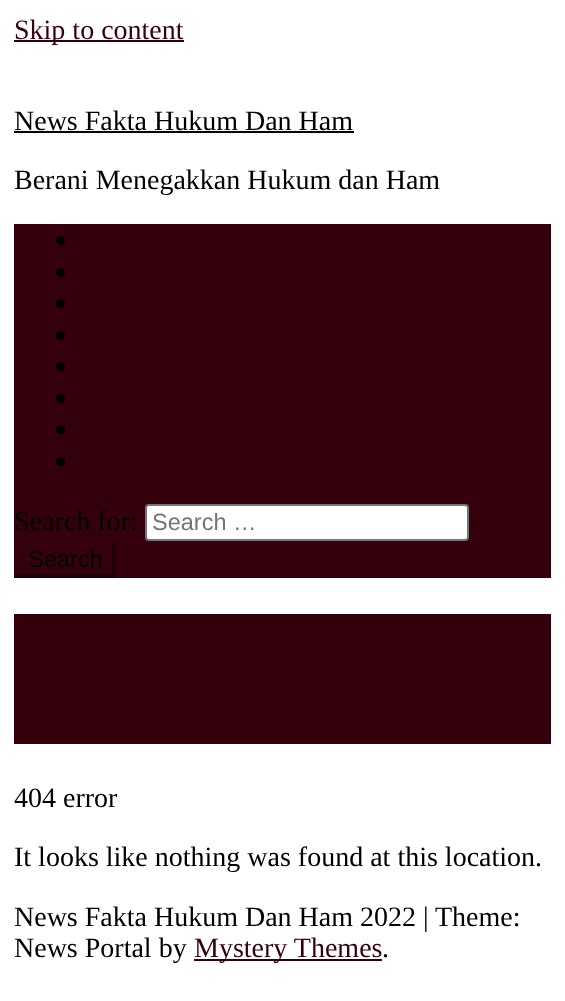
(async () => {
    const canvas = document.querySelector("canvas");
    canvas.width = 565;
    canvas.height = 1001;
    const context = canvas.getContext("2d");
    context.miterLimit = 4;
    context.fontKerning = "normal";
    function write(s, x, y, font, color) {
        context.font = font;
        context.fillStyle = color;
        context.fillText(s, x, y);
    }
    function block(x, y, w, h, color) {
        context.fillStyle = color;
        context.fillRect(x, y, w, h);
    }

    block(0, 0, 565, 1001, "rgb(255, 255, 255)");
    block(14, 40, 170, 2, "rgb(51, 0, 12)");
    write("Skip to content", 14, 39, "28px Liberation Serif", "rgb(51, 0, 12)");
    write("News Fakta Hukum Dan Ham", 14, 130, "28px Liberation Serif", "rgb(0, 0, 0)");
    block(14, 131, 340, 2, "rgb(0, 0, 0)");
    write("Berani Menegakkan Hukum dan Ham", 14, 189, "28px Liberation Serif", "rgb(0, 0, 0)");
    block(14, 224, 537, 354, "rgb(51, 0, 12)");
    context.fillStyle = "rgb(0, 0, 0)";
    context.beginPath();
    context.arc(60.5, 240.5, 4.5, 0, Math.PI * 2);
    context.fill();
    context.beginPath();
    context.arc(60.5, 272.5, 4.5, 0, Math.PI * 2);
    context.fill();
    context.beginPath();
    context.arc(60.5, 303.5, 4.5, 0, Math.PI * 2);
    context.fill();
    context.beginPath();
    context.arc(60.5, 335.5, 4.5, 0, Math.PI * 2);
    context.fill();
    context.beginPath();
    context.arc(60.5, 366.5, 4.5, 0, Math.PI * 2);
    context.fill();
    context.beginPath();
    context.arc(60.5, 398.5, 4.5, 0, Math.PI * 2);
    context.fill();
    context.beginPath();
    context.arc(60.5, 429.5, 4.5, 0, Math.PI * 2);
    context.fill();
    context.beginPath();
    context.arc(60.5, 461.5, 4.5, 0, Math.PI * 2);
    context.fill();
    write("Search for:", 14, 530, "28px Liberation Serif", "rgb(0, 0, 0)");
    context.fillStyle = "rgb(255, 255, 255)";
    context.beginPath();
    context.roundRect(146, 505, 322, 35, 3);
    context.fill();
    context.strokeStyle = "rgb(118, 118, 118)";
    context.lineWidth = 2;
    context.stroke();
    write("Search …", 152, 530, "23.5px Liberation Sans", "rgb(117, 117, 117)");
    context.fillStyle = "rgb(34, 0, 8)";
    context.beginPath();
    context.moveTo(115.5, 541);
    context.lineTo(115.5, 577.5);
    context.lineTo(112, 574);
    context.lineTo(112, 544);
    context.closePath();
    context.fill();
    context.beginPath();
    context.moveTo(116, 578);
    context.lineTo(14, 578);
    context.lineTo(18, 574);
    context.lineTo(112, 574);
    context.closePath();
    context.fill();
    write("Search", 28, 567, "23.5px Liberation Sans", "rgb(0, 0, 0)");
    block(14, 614, 537, 130, "rgb(51, 0, 12)");
    write("404 error", 14, 807, "28px Liberation Serif", "rgb(0, 0, 0)");
    write("It looks like nothing was found at this location.", 14, 866, "28px Liberation Serif", "rgb(0, 0, 0)");
    write("News Fakta Hukum Dan Ham 2022 |", 14, 926, "28px Liberation Serif", "rgb(0, 0, 0)");
    write("Theme:", 435, 926, "28px Liberation Serif", "rgb(0, 0, 0)");
    write("News Portal by", 14, 957, "28px Liberation Serif", "rgb(0, 0, 0)");
    block(194, 959, 188, 2, "rgb(51, 0, 12)");
    write("Mystery Themes", 194, 957, "28px Liberation Serif", "rgb(51, 0, 12)");
    write(".", 382, 957, "28px Liberation Serif", "rgb(0, 0, 0)");
})();
